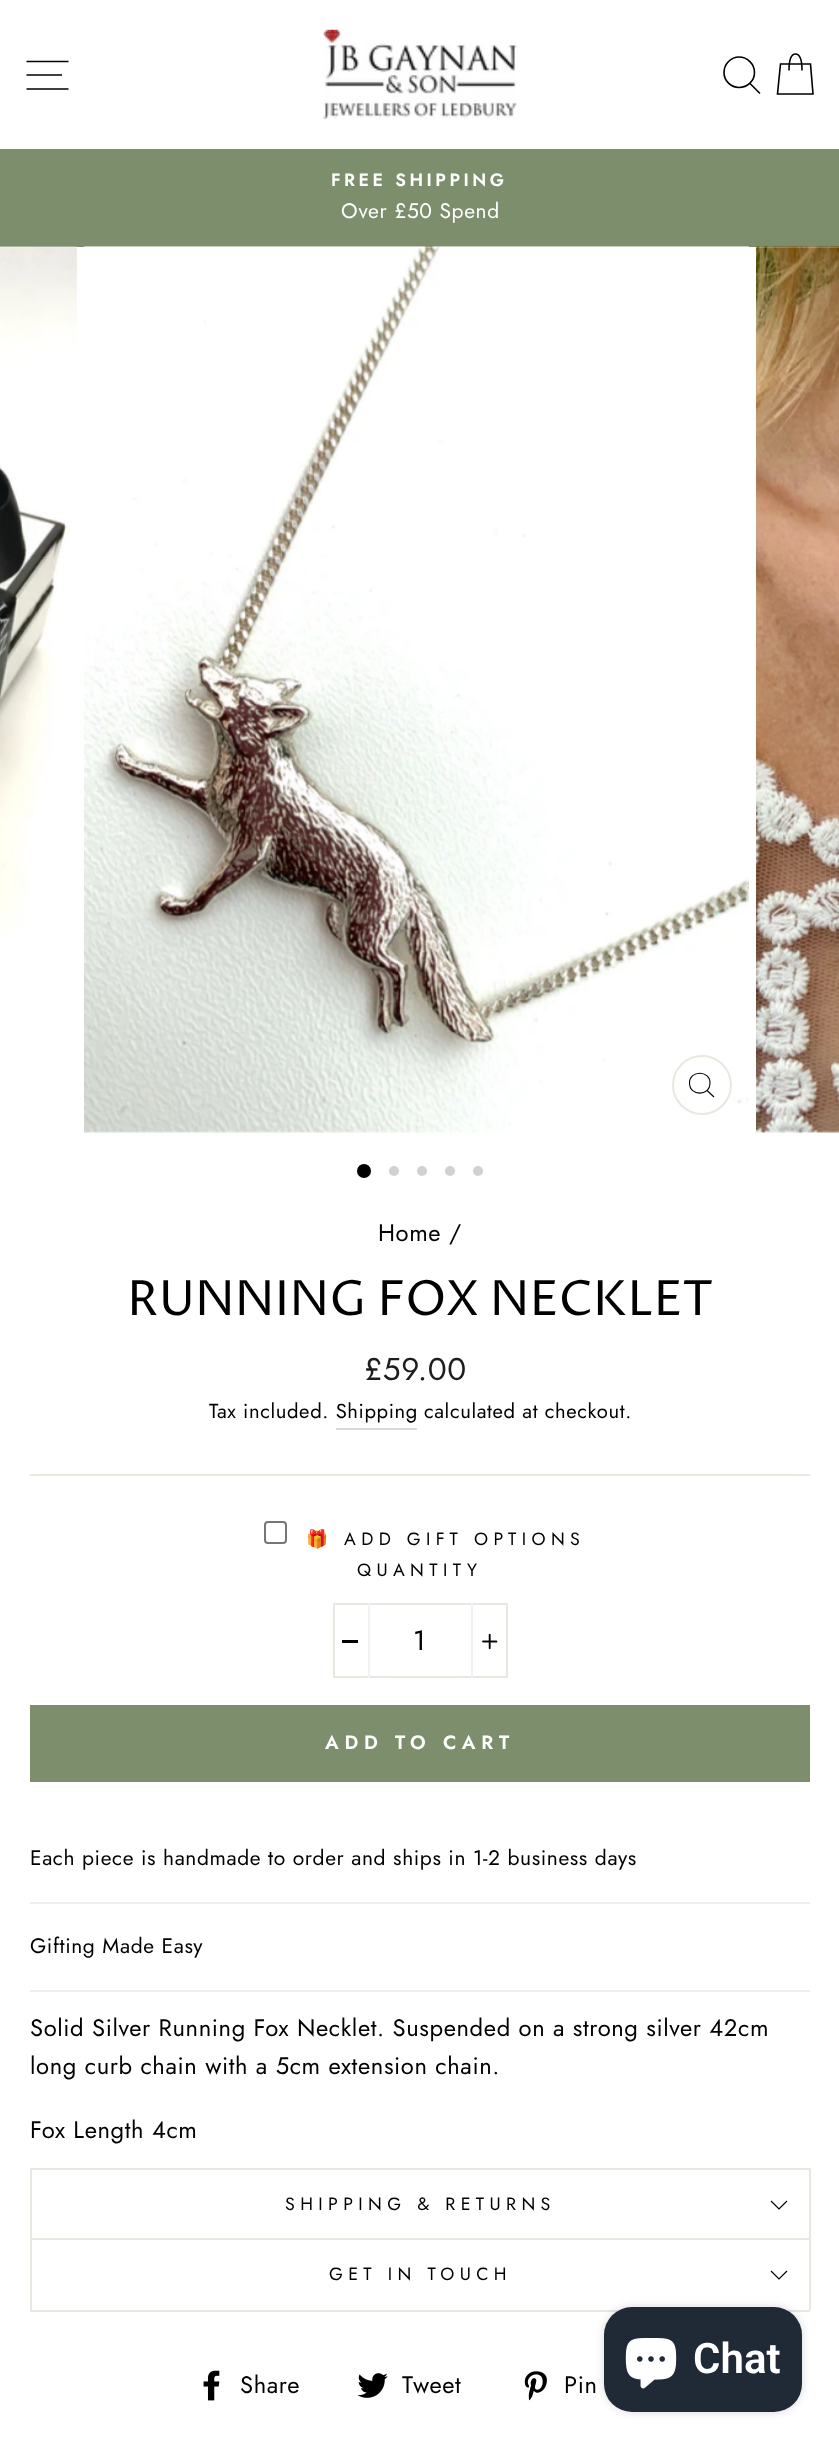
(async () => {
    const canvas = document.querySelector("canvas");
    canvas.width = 839;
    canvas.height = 2447;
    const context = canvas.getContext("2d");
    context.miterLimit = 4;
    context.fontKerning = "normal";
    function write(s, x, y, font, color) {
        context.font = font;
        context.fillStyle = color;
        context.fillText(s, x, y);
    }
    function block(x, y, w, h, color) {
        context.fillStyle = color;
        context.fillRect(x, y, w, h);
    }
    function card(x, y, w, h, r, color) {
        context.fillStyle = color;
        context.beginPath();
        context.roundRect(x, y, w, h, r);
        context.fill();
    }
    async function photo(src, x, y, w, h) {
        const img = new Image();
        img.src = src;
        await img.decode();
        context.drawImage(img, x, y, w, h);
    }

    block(0, 0, 839, 2447, "rgb(255, 255, 255)");
    context.beginPath();
    context.moveTo(26.5, 61.5);
    context.lineTo(68.5, 61.5);
    context.moveTo(26.5, 75);
    context.lineTo(62, 75);
    context.moveTo(26.5, 89);
    context.lineTo(68.5, 89);
    context.strokeStyle = "rgb(0, 0, 0)";
    context.lineWidth = 1.6;
    context.stroke();
    await photo("media/1.png", 323, 29, 194, 90);
    context.beginPath();
    context.moveTo(754.5, 72.5);
    context.bezierCurveTo(754.5, 81, 747.5, 87.5, 739, 87.5);
    context.bezierCurveTo(731, 87.5, 724, 81, 724, 72.5);
    context.bezierCurveTo(724, 64, 731, 57, 739, 57);
    context.bezierCurveTo(747.5, 57, 754.5, 64, 754.5, 72.5);
    context.closePath();
    context.moveTo(760, 93.5);
    context.lineTo(750, 83.5);
    context.stroke();
    context.beginPath();
    context.moveTo(789, 70.5);
    context.bezierCurveTo(789, 57.5, 791.5, 54, 795.5, 54);
    context.bezierCurveTo(799, 54, 802, 57.5, 802, 70.5);
    context.moveTo(780.5, 64);
    context.lineTo(810.5, 64);
    context.lineTo(813, 94);
    context.lineTo(777.5, 94);
    context.closePath();
    context.stroke();
    block(0, 149, 839, 98, "rgb(125, 142, 109)");
    context.letterSpacing = "3.5px";
    write("FREE SHIPPING", 331, 186, "600 17.8px Jost", "rgb(255, 255, 255)");
    context.letterSpacing = "0.6px";
    write("Over £50 Spend", 341, 218, "21px Jost", "rgb(255, 255, 255)");
    await photo("media/2.png", 0, 246, 77, 689);
    await photo("media/3.png", 84, 246, 665, 887);
    context.beginPath();
    context.arc(702, 1085, 29, 0, Math.PI * 2);
    context.strokeStyle = "rgb(232, 232, 225)";
    context.lineWidth = 2;
    context.stroke();
    context.beginPath();
    context.moveTo(710, 1083);
    context.bezierCurveTo(710, 1096.5, 689.5, 1096.5, 689.5, 1083);
    context.bezierCurveTo(689.5, 1070, 710, 1070, 710, 1083);
    context.closePath();
    context.moveTo(714, 1097);
    context.lineTo(707, 1090.5);
    context.strokeStyle = "rgb(0, 0, 0)";
    context.lineWidth = 1.1;
    context.stroke();
    await photo("media/4.png", 756, 246, 83, 887);
    context.fillStyle = "rgb(0, 0, 0)";
    context.beginPath();
    context.arc(364, 1171, 7, 0, Math.PI * 2);
    context.fill();
    context.fillStyle = "rgb(209, 209, 209)";
    context.beginPath();
    context.arc(394, 1171, 5, 0, Math.PI * 2);
    context.fill();
    context.beginPath();
    context.arc(422, 1171, 5, 0, Math.PI * 2);
    context.fill();
    context.beginPath();
    context.arc(450, 1171, 5, 0, Math.PI * 2);
    context.fill();
    context.beginPath();
    context.arc(478, 1171, 5, 0, Math.PI * 2);
    context.fill();
    write("Home /", 378, 1241, "23.8px Jost", "rgb(0, 0, 0)");
    context.letterSpacing = "0px";
    write("RUNNING FOX NECKLET", 127, 1315, "48.5px Proza Libre", "rgb(0, 0, 0)");
    context.letterSpacing = "0.6px";
    write("£59.00", 364, 1380, "31.5px Jost", "rgb(28, 29, 29)");
    write("Tax included. Shipping", 209, 1418, "20.25px Jost", "rgb(0, 0, 0)");
    write("calculated at checkout.", 424, 1418, "20.25px Jost", "rgb(0, 0, 0)");
    block(336, 1428, 81, 2, "rgb(217, 217, 217)");
    block(30, 1474, 780, 2, "rgb(232, 232, 225)");
    context.beginPath();
    context.roundRect(265, 1522, 21, 21, 3);
    context.strokeStyle = "rgb(118, 118, 118)";
    context.lineWidth = 2;
    context.stroke();
    context.letterSpacing = "5.4px";
    write("🎁", 306, 1545, "17.8px Noto Color Emoji", "rgb(0, 0, 0)");
    write("ADD GIFT OPTIONS", 344, 1545, "17.8px Jost", "rgb(0, 0, 0)");
    write("QUANTITY", 357, 1576, "17.8px Jost", "rgb(0, 0, 0)");
    context.strokeStyle = "rgb(232, 232, 225)";
    context.strokeRect(334, 1604, 173, 73);
    block(368, 1603, 2, 75, "rgb(242, 242, 242)");
    block(342, 1640, 16, 3, "rgb(0, 0, 0)");
    context.letterSpacing = "1px";
    write("1", 413, 1650, "28px Jost", "rgb(0, 0, 0)");
    block(471, 1603, 2, 75, "rgb(242, 242, 242)");
    await photo("media/5.png", 482, 1633, 16, 17);
    block(30, 1705, 780, 77, "rgb(125, 142, 109)");
    context.letterSpacing = "5.75px";
    write("ADD TO CART", 325, 1749, "600 19.25px Jost", "rgb(255, 255, 255)");
    block(30, 1902, 780, 2, "rgb(238, 238, 238)");
    context.letterSpacing = "0.6px";
    write("Each piece is handmade to order and ships in 1-2 business days", 30, 1865, "21px Jost", "rgb(0, 0, 0)");
    block(30, 1990, 780, 2, "rgb(238, 238, 238)");
    write("Gifting Made Easy", 30, 1953, "21px Jost", "rgb(0, 0, 0)");
    write("Solid Silver Running Fox Necklet. Suspended on a strong silver 42cm", 30, 2036, "23.8px Jost", "rgb(0, 0, 0)");
    write("long curb chain with a 5cm extension chain.", 30, 2074, "23.8px Jost", "rgb(0, 0, 0)");
    write("Fox Length 4cm", 30, 2138, "23.8px Jost", "rgb(0, 0, 0)");
    block(30, 2310, 780, 2, "rgb(232, 232, 225)");
    block(30, 2168, 780, 2, "rgb(232, 232, 225)");
    block(809, 2168, 2, 72, "rgb(232, 232, 225)");
    block(30, 2168, 2, 72, "rgb(232, 232, 225)");
    context.letterSpacing = "5.4px";
    write("SHIPPING & RETURNS", 285, 2210, "17.8px Jost", "rgb(0, 0, 0)");
    context.beginPath();
    context.moveTo(771, 2201);
    context.lineTo(779, 2209);
    context.lineTo(787, 2201);
    context.strokeStyle = "rgb(0, 0, 0)";
    context.lineWidth = 1.2;
    context.stroke();
    block(30, 2238, 780, 2, "rgb(232, 232, 225)");
    block(809, 2238, 2, 72, "rgb(232, 232, 225)");
    block(30, 2238, 2, 72, "rgb(232, 232, 225)");
    write("GET IN TOUCH", 329, 2280, "17.8px Jost", "rgb(0, 0, 0)");
    context.beginPath();
    context.moveTo(771, 2271);
    context.lineTo(779, 2279);
    context.lineTo(787, 2271);
    context.stroke();
    await photo("media/6.png", 203, 2370, 17, 31);
    context.letterSpacing = "0.6px";
    write("Share", 240, 2393, "23.8px Jost", "rgb(0, 0, 0)");
    await photo("media/7.png", 357, 2373, 31, 25);
    write("Tweet", 402, 2393, "23.8px Jost", "rgb(0, 0, 0)");
    await photo("media/8.png", 524, 2371, 23, 30);
    write("Pin", 564, 2393, "23.8px Jost", "rgb(0, 0, 0)");
    context.fillStyle = "rgba(0, 0, 0, 0.15)";
    context.filter = "blur(4.5px)";
    context.beginPath();
    context.roundRect(604, 2307, 198, 105, 28);
    context.fill();
    context.filter = "none";
    card(604, 2307, 198, 105, 28, "rgb(32, 42, 54)");
    await photo("media/9.png", 625, 2338, 52, 51);
    context.letterSpacing = "0px";
    write("Chat", 693, 2373, "600 42px Roboto", "rgb(255, 255, 255)");
})();
